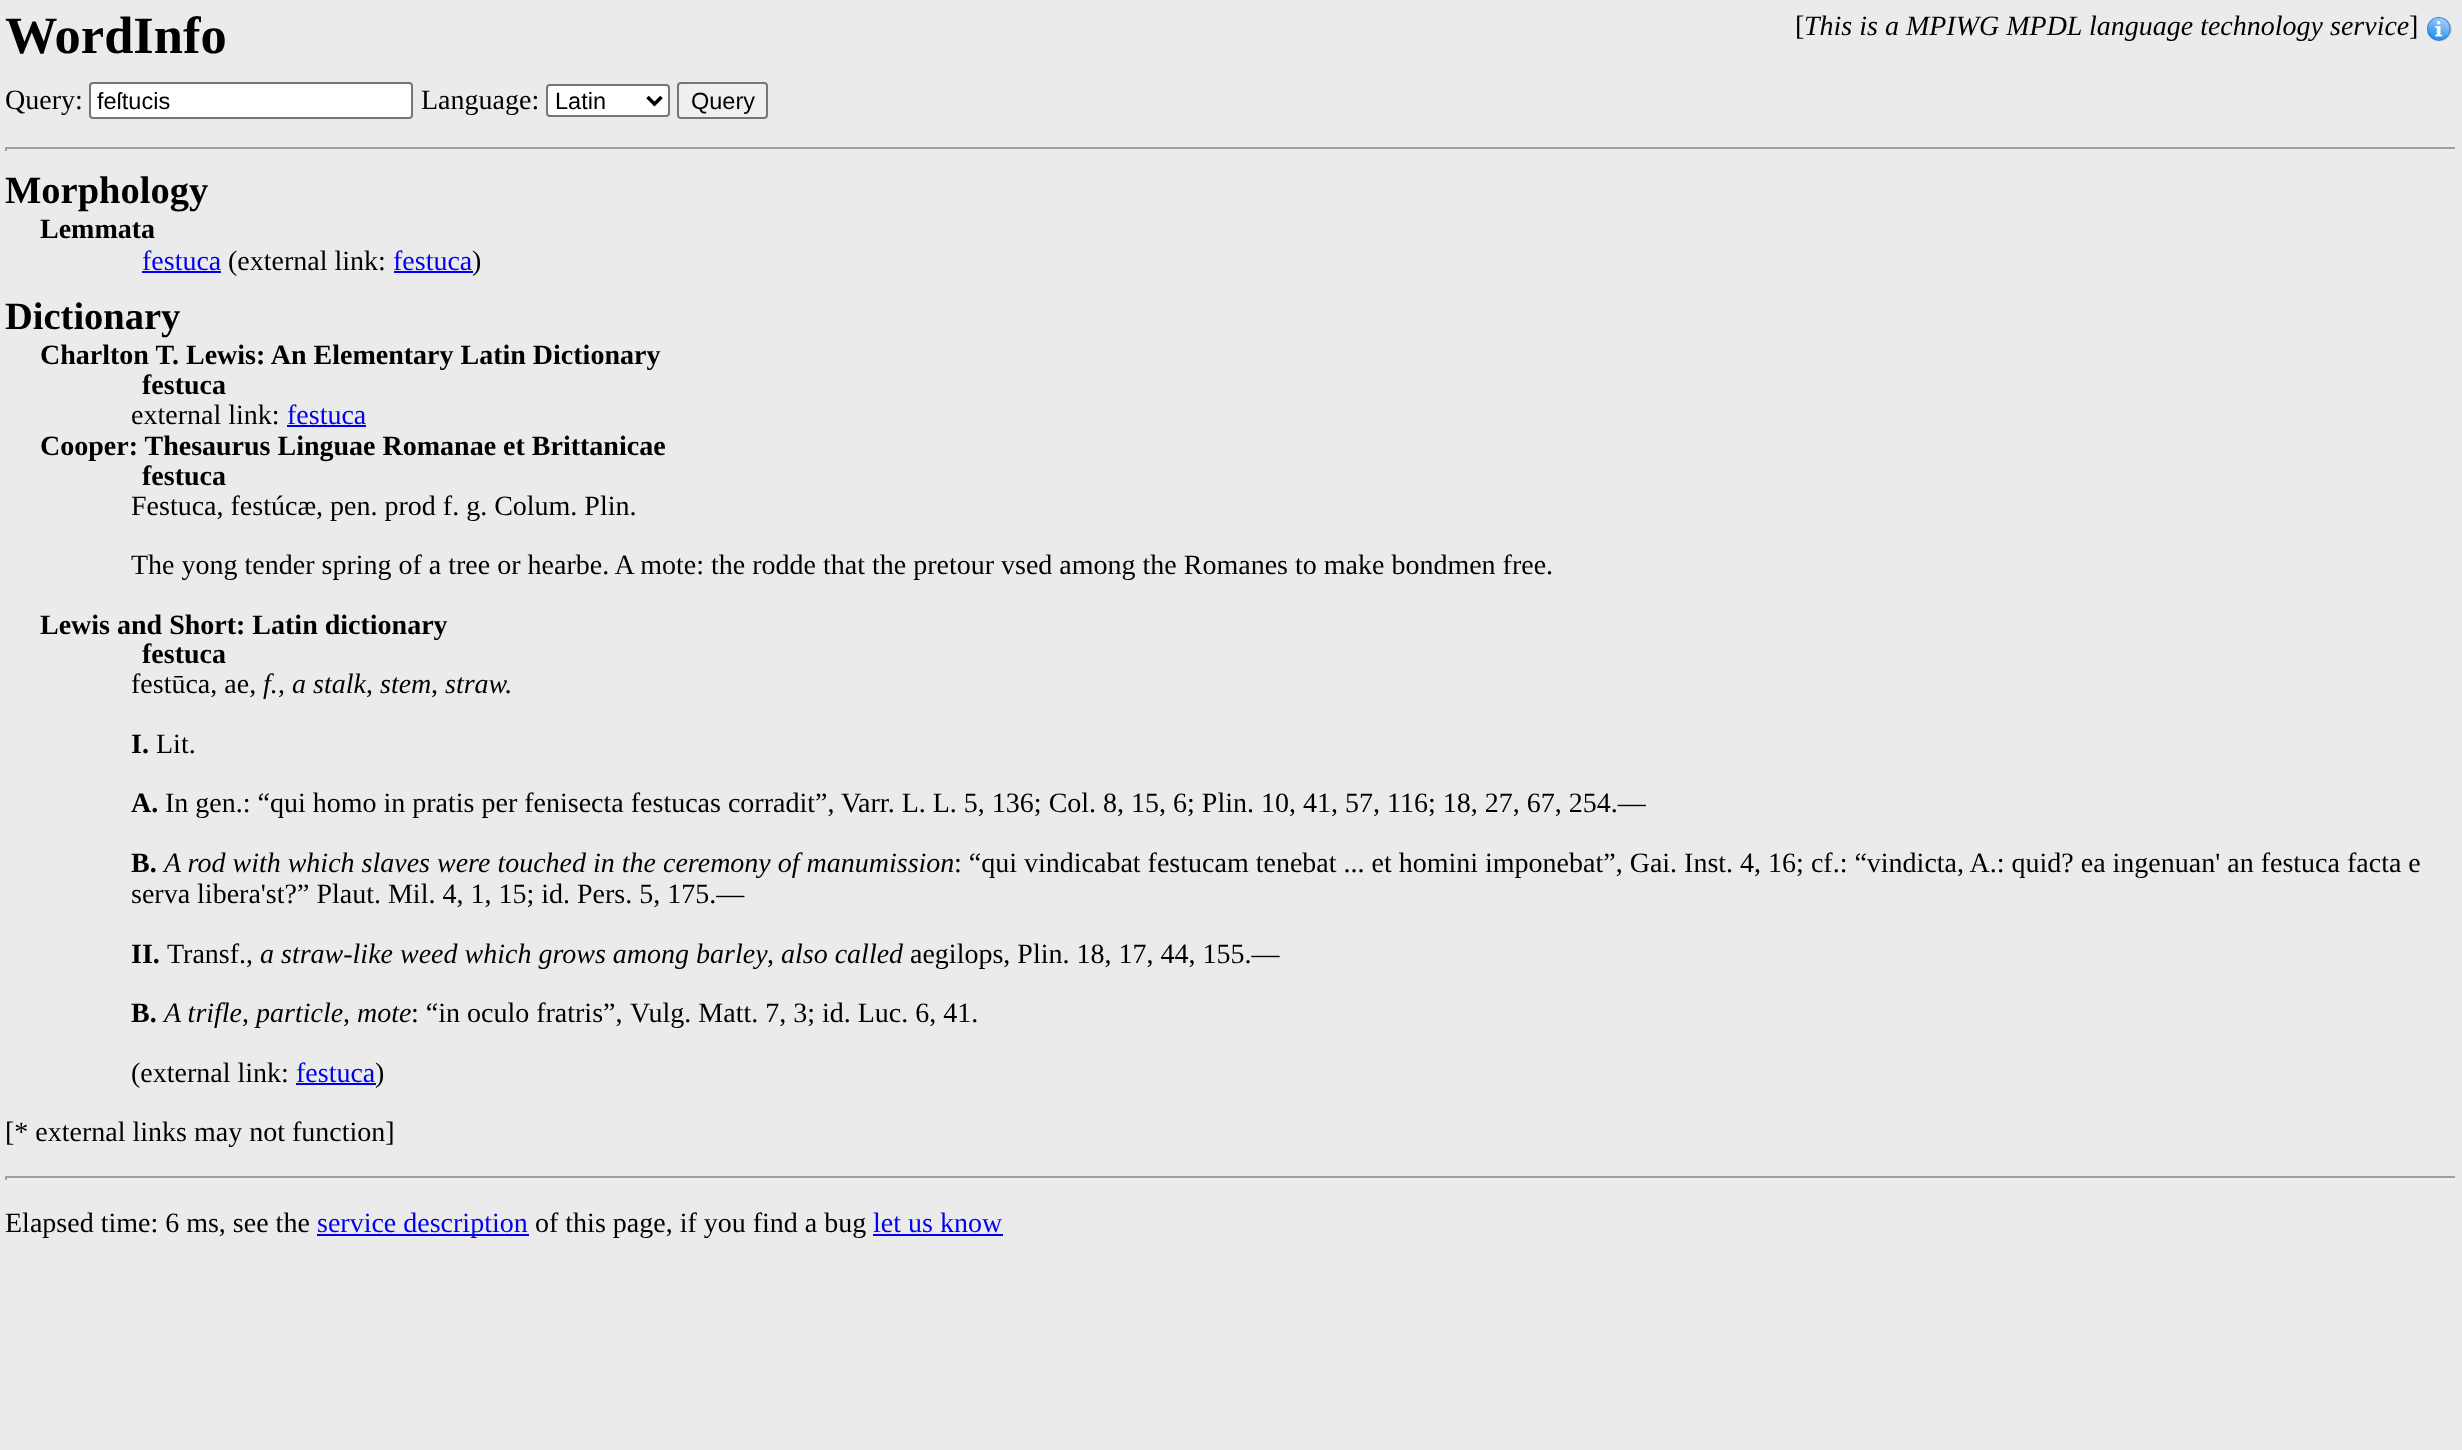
(async () => {
    const canvas = document.querySelector("canvas");
    canvas.width = 2462;
    canvas.height = 1450;
    const context = canvas.getContext("2d");
    context.miterLimit = 4;
    context.fontKerning = "normal";
    function write(s, x, y, font, color) {
        context.font = font;
        context.fillStyle = color;
        context.fillText(s, x, y);
    }
    function block(x, y, w, h, color) {
        context.fillStyle = color;
        context.fillRect(x, y, w, h);
    }
    async function photo(src, x, y, w, h) {
        const img = new Image();
        img.src = src;
        await img.decode();
        context.drawImage(img, x, y, w, h);
    }

    block(0, 0, 2462, 1450, "rgb(235, 235, 235)");
    write("WordInfo", 5, 53, "bold 52.5px Liberation Serif", "rgb(0, 0, 0)");
    write("[", 1795, 35, "28px Liberation Serif", "rgb(0, 0, 0)");
    write("This is a MPIWG MPDL language technology service", 1804, 35, "italic 28px Liberation Serif", "rgb(0, 0, 0)");
    write("]", 2409, 35, "28px Liberation Serif", "rgb(0, 0, 0)");
    await photo("media/1.png", 2427, 17, 25, 25);
    write("Query:", 5, 109, "28px Liberation Serif", "rgb(0, 0, 0)");
    context.fillStyle = "rgb(255, 255, 255)";
    context.beginPath();
    context.roundRect(90, 83, 322, 35, 3);
    context.fill();
    context.strokeStyle = "rgb(118, 118, 118)";
    context.lineWidth = 2;
    context.stroke();
    write("feſtucis", 97, 109, "23.5px Liberation Sans", "rgb(0, 0, 0)");
    write("Language:", 421, 109, "28px Liberation Serif", "rgb(0, 0, 0)");
    context.fillStyle = "rgb(255, 255, 255)";
    context.beginPath();
    context.roundRect(547, 85, 122, 31, 3);
    context.fill();
    context.stroke();
    context.beginPath();
    context.moveTo(647.5, 97);
    context.lineTo(654.5, 104);
    context.lineTo(661.5, 97);
    context.strokeStyle = "rgb(0, 0, 0)";
    context.lineWidth = 3.5;
    context.stroke();
    write("Latin", 555, 109, "23.5px Liberation Sans", "rgb(0, 0, 0)");
    context.fillStyle = "rgb(239, 239, 239)";
    context.beginPath();
    context.roundRect(678, 83, 89, 35, 3);
    context.fill();
    context.strokeStyle = "rgb(118, 118, 118)";
    context.lineWidth = 2;
    context.stroke();
    write("Query", 691, 109, "23.5px Liberation Sans", "rgb(0, 0, 0)");
    block(5, 147, 2452, 2, "rgb(159, 159, 159)");
    block(2455, 147, 2, 4, "rgb(238, 238, 238)");
    block(5, 149, 2452, 2, "rgb(238, 238, 238)");
    block(5, 147, 2, 4, "rgb(159, 159, 159)");
    write("Morphology", 5, 203, "bold 38.5px Liberation Serif", "rgb(0, 0, 0)");
    write("Lemmata", 40, 238, "bold 28px Liberation Serif", "rgb(0, 0, 0)");
    write("festuca", 142, 270, "28px Liberation Serif", "rgb(0, 0, 238)");
    block(142, 271, 79, 2, "rgb(0, 0, 238)");
    write("(external link:", 228, 270, "28px Liberation Serif", "rgb(0, 0, 0)");
    write("festuca", 393, 270, "28px Liberation Serif", "rgb(0, 0, 238)");
    block(394, 271, 79, 2, "rgb(0, 0, 238)");
    write(")", 472, 270, "28px Liberation Serif", "rgb(0, 0, 0)");
    write("Dictionary", 5, 329, "bold 38.5px Liberation Serif", "rgb(0, 0, 0)");
    write("Charlton T. Lewis: An Elementary Latin Dictionary", 40, 364, "bold 28px Liberation Serif", "rgb(0, 0, 0)");
    write("festuca", 142, 394, "bold 28px Liberation Serif", "rgb(0, 0, 0)");
    write("external link:", 131, 424, "28px Liberation Serif", "rgb(0, 0, 0)");
    write("festuca", 287, 424, "28px Liberation Serif", "rgb(0, 0, 238)");
    block(287, 425, 79, 2, "rgb(0, 0, 238)");
    write("Cooper: Thesaurus Linguae Romanae et Brittanicae", 40, 455, "bold 28px Liberation Serif", "rgb(0, 0, 0)");
    write("festuca", 142, 485, "bold 28px Liberation Serif", "rgb(0, 0, 0)");
    write("Festuca, festúcæ, pen. prod f. g. Colum. Plin.", 131, 515, "28px Liberation Serif", "rgb(0, 0, 0)");
    write("The yong tender spring of a tree or hearbe. A mote: the rodde that the pretour vsed among the Romanes to make bondmen free.", 131, 574, "28px Liberation Serif", "rgb(0, 0, 0)");
    write("Lewis and Short: Latin dictionary", 40, 634, "bold 28px Liberation Serif", "rgb(0, 0, 0)");
    write("festuca", 142, 663, "bold 28px Liberation Serif", "rgb(0, 0, 0)");
    write("festūca, ae,", 131, 693, "28px Liberation Serif", "rgb(0, 0, 0)");
    write("f.", 263, 693, "italic 28px Liberation Serif", "rgb(0, 0, 0)");
    write(",", 278, 693, "28px Liberation Serif", "rgb(0, 0, 0)");
    write("a stalk", 292, 693, "italic 28px Liberation Serif", "rgb(0, 0, 0)");
    write(",", 366, 693, "28px Liberation Serif", "rgb(0, 0, 0)");
    write("stem", 380, 693, "italic 28px Liberation Serif", "rgb(0, 0, 0)");
    write(",", 431, 693, "28px Liberation Serif", "rgb(0, 0, 0)");
    write("straw.", 445, 693, "italic 28px Liberation Serif", "rgb(0, 0, 0)");
    write("I.", 131, 753, "bold 28px Liberation Serif", "rgb(0, 0, 0)");
    write("Lit.", 156, 753, "28px Liberation Serif", "rgb(0, 0, 0)");
    write("A.", 131, 812, "bold 28px Liberation Serif", "rgb(0, 0, 0)");
    write("In gen.: “qui homo in pratis per fenisecta festucas corradit”,", 165, 812, "28px Liberation Serif", "rgb(0, 0, 0)");
    write("Varr. L. L. 5, 136; Col. 8, 15, 6; Plin. 10, 41, 57, 116; 18, 27, 67, 254.—", 841, 812, "28px Liberation Serif", "rgb(0, 0, 0)");
    write("B.", 131, 872, "bold 28px Liberation Serif", "rgb(0, 0, 0)");
    write("A rod with which slaves were touched in the ceremony of manumission", 164, 872, "italic 28px Liberation Serif", "rgb(0, 0, 0)");
    write(": “qui vindicabat festucam tenebat ... et homini imponebat”, Gai. Inst. 4, 16; cf.: “vindicta, A.: quid? ea ingenuan' an festuca facta e", 954, 872, "28px Liberation Serif", "rgb(0, 0, 0)");
    write("serva libera'st?” Plaut. Mil. 4, 1, 15; id. Pers. 5, 175.—", 131, 903, "28px Liberation Serif", "rgb(0, 0, 0)");
    write("II.", 131, 963, "bold 28px Liberation Serif", "rgb(0, 0, 0)");
    write("Transf.,", 167, 963, "28px Liberation Serif", "rgb(0, 0, 0)");
    write("a straw-like weed which grows among barley", 260, 963, "italic 28px Liberation Serif", "rgb(0, 0, 0)");
    write(",", 767, 963, "28px Liberation Serif", "rgb(0, 0, 0)");
    write("also called", 781, 963, "italic 28px Liberation Serif", "rgb(0, 0, 0)");
    write("aegilops, Plin. 18, 17, 44, 155.—", 910, 963, "28px Liberation Serif", "rgb(0, 0, 0)");
    write("B.", 131, 1022, "bold 28px Liberation Serif", "rgb(0, 0, 0)");
    write("A trifle", 164, 1022, "italic 28px Liberation Serif", "rgb(0, 0, 0)");
    write(",", 242, 1022, "28px Liberation Serif", "rgb(0, 0, 0)");
    write("particle", 256, 1022, "italic 28px Liberation Serif", "rgb(0, 0, 0)");
    write(",", 343, 1022, "28px Liberation Serif", "rgb(0, 0, 0)");
    write("mote", 357, 1022, "italic 28px Liberation Serif", "rgb(0, 0, 0)");
    write(": “in oculo fratris”,", 411, 1022, "28px Liberation Serif", "rgb(0, 0, 0)");
    write("Vulg. Matt. 7, 3; id. Luc. 6, 41.", 630, 1022, "28px Liberation Serif", "rgb(0, 0, 0)");
    write("(external link:", 131, 1082, "28px Liberation Serif", "rgb(0, 0, 0)");
    write("festuca", 296, 1082, "28px Liberation Serif", "rgb(0, 0, 238)");
    block(296, 1083, 80, 2, "rgb(0, 0, 238)");
    write(")", 375, 1082, "28px Liberation Serif", "rgb(0, 0, 0)");
    write("[* external links may not function]", 5, 1141, "28px Liberation Serif", "rgb(0, 0, 0)");
    block(5, 1176, 2452, 2, "rgb(159, 159, 159)");
    block(2455, 1176, 2, 4, "rgb(238, 238, 238)");
    block(5, 1178, 2452, 2, "rgb(238, 238, 238)");
    block(5, 1176, 2, 4, "rgb(159, 159, 159)");
    write("Elapsed time: 6 ms, see the", 5, 1232, "28px Liberation Serif", "rgb(0, 0, 0)");
    block(317, 1234, 212, 2, "rgb(0, 0, 238)");
    write("service description", 317, 1232, "28px Liberation Serif", "rgb(0, 0, 238)");
    write("of this page, if you find a bug", 535, 1232, "28px Liberation Serif", "rgb(0, 0, 0)");
    write("let us know", 873, 1232, "28px Liberation Serif", "rgb(0, 0, 238)");
    block(873, 1234, 130, 2, "rgb(0, 0, 238)");
})();
